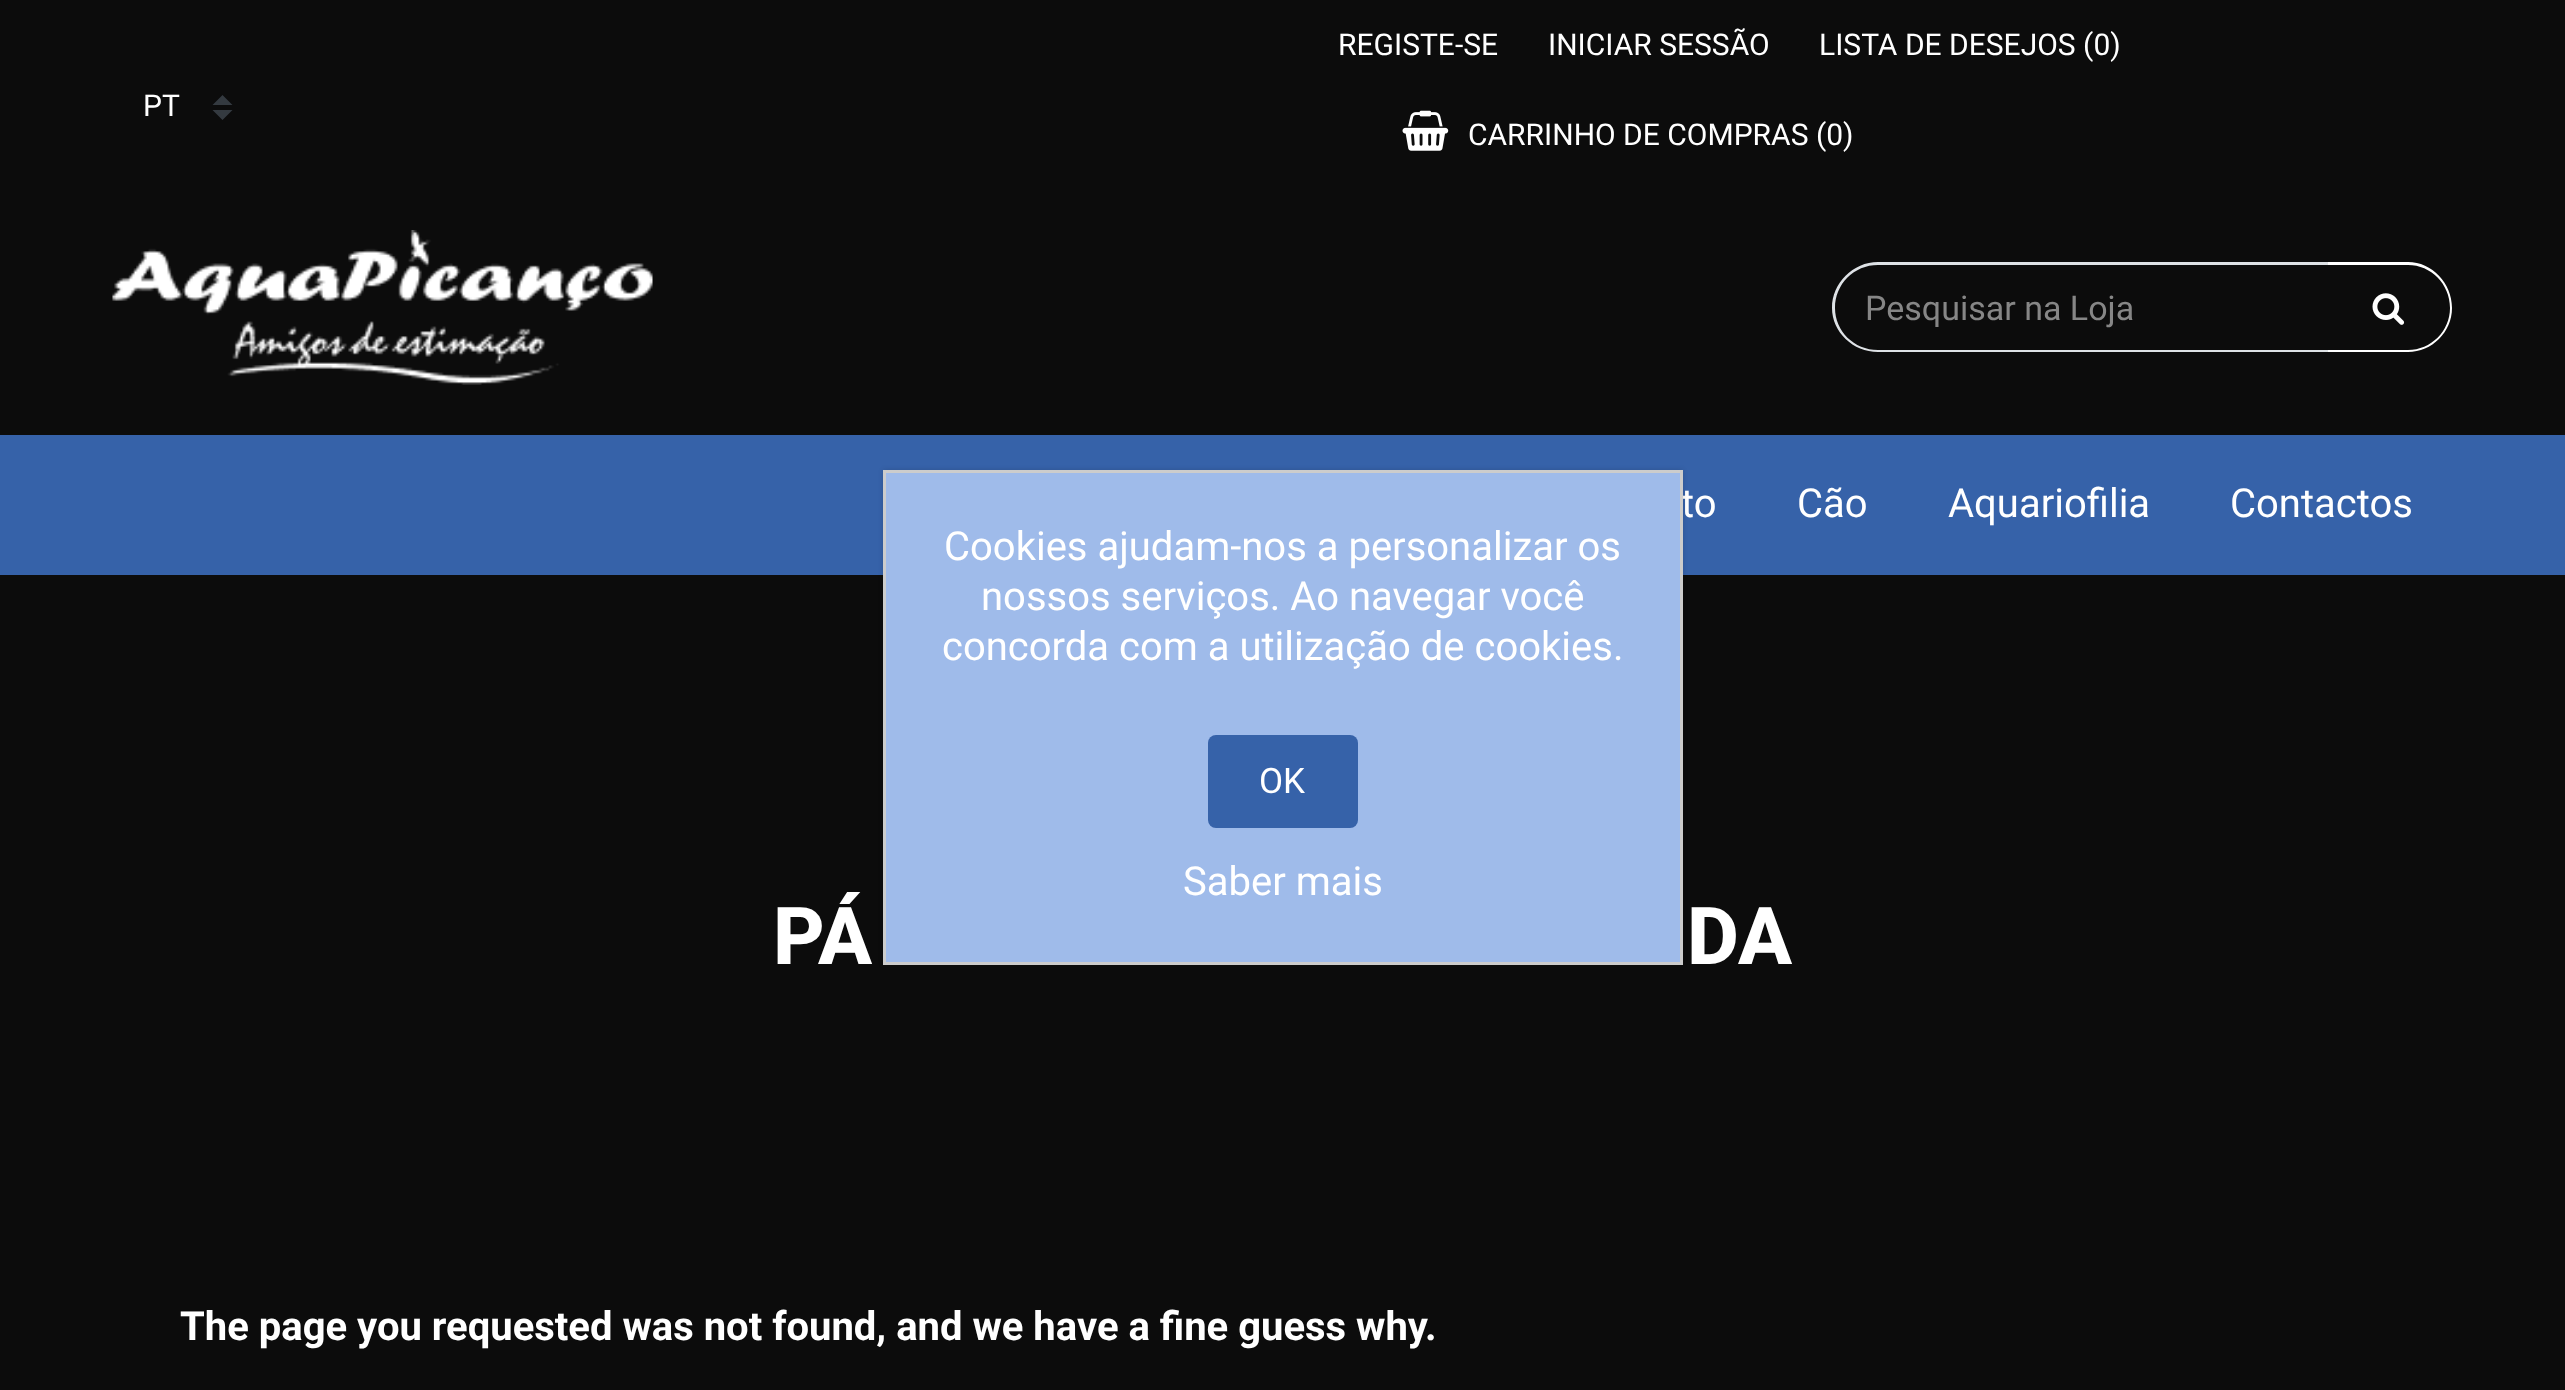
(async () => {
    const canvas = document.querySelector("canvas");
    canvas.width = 2565;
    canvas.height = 1390;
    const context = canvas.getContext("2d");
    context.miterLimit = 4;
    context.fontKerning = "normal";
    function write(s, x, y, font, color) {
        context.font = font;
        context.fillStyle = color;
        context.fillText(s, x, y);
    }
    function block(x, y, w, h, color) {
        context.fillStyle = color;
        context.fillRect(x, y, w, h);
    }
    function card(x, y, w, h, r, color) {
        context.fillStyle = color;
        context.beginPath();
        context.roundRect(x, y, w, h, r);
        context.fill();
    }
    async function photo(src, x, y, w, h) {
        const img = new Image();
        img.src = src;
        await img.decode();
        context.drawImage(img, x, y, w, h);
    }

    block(0, 0, 2565, 1390, "rgb(12, 12, 12)");
    context.fillStyle = "rgb(52, 58, 64)";
    context.beginPath();
    context.moveTo(222.5, 95);
    context.lineTo(212.5, 105);
    context.lineTo(232.5, 105);
    context.closePath();
    context.moveTo(222.5, 120);
    context.lineTo(212.5, 110);
    context.lineTo(232.5, 110);
    context.closePath();
    context.fill();
    write("PT", 143, 116, "30px Roboto", "rgb(255, 255, 255)");
    write("REGISTE-SE", 1338, 55, "30px Roboto", "rgb(255, 255, 255)");
    write("INICIAR SESSÃO", 1548, 55, "30px Roboto", "rgb(255, 255, 255)");
    write("LISTA DE DESEJOS (0)", 1819, 55, "30px Roboto", "rgb(255, 255, 255)");
    await photo("media/1.png", 1402, 110, 47, 41);
    write("CARRINHO DE COMPRAS (0)", 1468, 145, "30px Roboto", "rgb(255, 255, 255)");
    await photo("media/2.png", 112, 230, 541, 155);
    context.fillStyle = "rgb(222, 226, 230)";
    context.beginPath();
    context.moveTo(1878, 262);
    context.lineTo(2332, 262);
    context.lineTo(2332, 352);
    context.lineTo(1878, 352);
    context.bezierCurveTo(1853, 352, 1832, 332, 1832, 308);
    context.bezierCurveTo(1832, 283, 1853, 262, 1878, 262);
    context.closePath();
    context.moveTo(1878, 265);
    context.lineTo(2332, 265);
    context.lineTo(2332, 350);
    context.lineTo(1878, 350);
    context.bezierCurveTo(1854, 350, 1835, 331, 1835, 308);
    context.bezierCurveTo(1835, 284, 1854, 265, 1878, 265);
    context.closePath();
    context.fill("evenodd");
    write("Pesquisar na Loja", 1865, 320, "34px Roboto", "rgb(134, 134, 134)");
    context.fillStyle = "rgb(255, 255, 255)";
    context.beginPath();
    context.moveTo(2328, 262);
    context.lineTo(2408, 262);
    context.bezierCurveTo(2432, 262, 2452, 283, 2452, 308);
    context.bezierCurveTo(2452, 332, 2432, 352, 2408, 352);
    context.lineTo(2328, 352);
    context.closePath();
    context.moveTo(2328, 265);
    context.lineTo(2408, 265);
    context.bezierCurveTo(2431, 265, 2450, 284, 2450, 308);
    context.bezierCurveTo(2450, 331, 2431, 350, 2408, 350);
    context.lineTo(2328, 350);
    context.closePath();
    context.fill("evenodd");
    await photo("media/3.png", 2372, 293, 33, 32);
    block(0, 435, 2565, 140, "rgb(54, 98, 169)");
    write("to", 1681, 517, "40px Roboto", "rgb(255, 255, 255)");
    write("Cão", 1797, 517, "40px Roboto", "rgb(255, 255, 255)");
    write("Aquariofilia", 1948, 517, "40px Roboto", "rgb(255, 255, 255)");
    write("Contactos", 2230, 517, "40px Roboto", "rgb(255, 255, 255)");
    write("PÁ", 773, 964, "800 80px Roboto", "rgb(255, 255, 255)");
    write("DA", 1687, 964, "800 80px Roboto", "rgb(255, 255, 255)");
    write("The page you requested was not found, and we have a fine guess why.", 180, 1340, "bold 40px Roboto", "rgb(255, 255, 255)");
    context.fillStyle = "rgba(0, 0, 0, 0.15)";
    context.filter = "blur(2.5px)";
    context.beginPath();
    context.rect(883, 470, 800, 495);
    context.fill();
    context.filter = "none";
    context.fillStyle = "rgb(159, 187, 234)";
    context.beginPath();
    context.rect(884.5, 471.5, 797, 492);
    context.fill();
    context.strokeStyle = "rgb(204, 204, 204)";
    context.lineWidth = 3;
    context.stroke();
    write("Cookies ajudam-nos a personalizar os", 944, 560, "40px Roboto", "rgb(255, 255, 255)");
    write("nossos serviços. Ao navegar você", 981, 610, "40px Roboto", "rgb(255, 255, 255)");
    write("concorda com a utilização de cookies.", 942, 660, "40px Roboto", "rgb(255, 255, 255)");
    card(1208, 735, 150, 93, 8, "rgb(54, 98, 169)");
    write("OK", 1259, 793, "35px Roboto", "rgb(255, 255, 255)");
    write("Saber mais", 1183, 895, "40px Roboto", "rgb(255, 255, 255)");
})();
